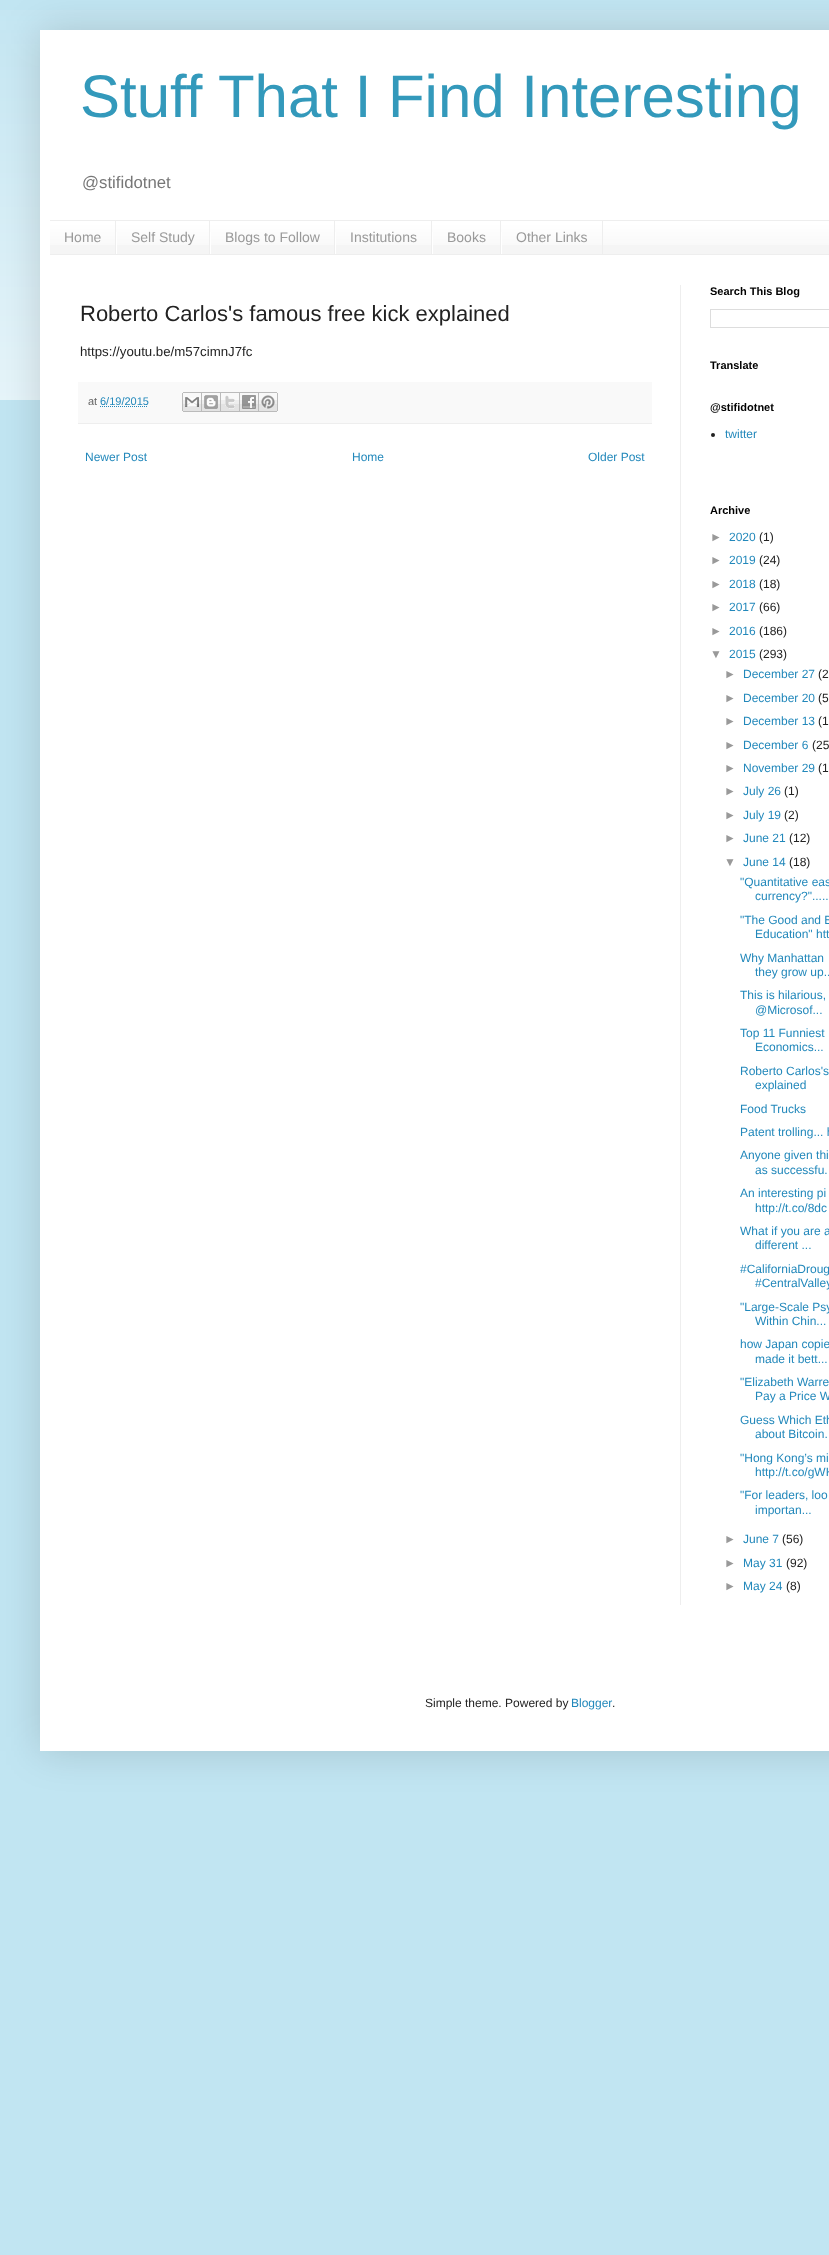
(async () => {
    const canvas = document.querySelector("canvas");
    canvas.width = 829;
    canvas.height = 2255;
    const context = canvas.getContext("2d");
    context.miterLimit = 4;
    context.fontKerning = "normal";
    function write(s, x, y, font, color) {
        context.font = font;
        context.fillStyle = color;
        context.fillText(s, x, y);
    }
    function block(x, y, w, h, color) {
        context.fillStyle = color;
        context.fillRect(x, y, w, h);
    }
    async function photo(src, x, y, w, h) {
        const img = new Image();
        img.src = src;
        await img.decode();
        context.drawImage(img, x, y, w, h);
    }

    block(0, 0, 829, 2255, "rgb(193, 229, 242)");
    await photo("media/1.png", 0, 10, 829, 390);
    context.fillStyle = "rgba(0, 0, 0, 0.15)";
    context.filter = "blur(20px)";
    context.beginPath();
    context.rect(40, 30, 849, 1721);
    context.fill();
    context.filter = "none";
    block(40, 30, 789, 1721, "rgb(255, 255, 255)");
    write("Stuff That I Find Interesting", 80, 117, "60px Liberation Sans", "rgb(51, 153, 187)");
    write("@stifidotnet", 82, 188, "16.75px Liberation Sans", "rgb(119, 119, 119)");
    block(50, 222, 779, 32, "rgb(245, 245, 245)");
    await photo("media/2.png", 50, 221, 779, 24);
    block(50, 220, 779, 1, "rgb(238, 238, 238)");
    block(50, 254, 779, 1, "rgb(238, 238, 238)");
    block(115, 221, 1, 33, "rgb(238, 238, 238)");
    write("Home", 64, 242, "14px Liberation Sans", "rgb(153, 153, 153)");
    block(209, 221, 1, 33, "rgb(238, 238, 238)");
    block(116, 232, 1, 22, "rgb(255, 255, 255)");
    write("Self Study", 131, 242, "14px Liberation Sans", "rgb(153, 153, 153)");
    block(334, 221, 1, 33, "rgb(238, 238, 238)");
    block(210, 232, 1, 22, "rgb(255, 255, 255)");
    write("Blogs to Follow", 225, 242, "14px Liberation Sans", "rgb(153, 153, 153)");
    block(431, 221, 1, 33, "rgb(238, 238, 238)");
    block(335, 232, 1, 22, "rgb(255, 255, 255)");
    write("Institutions", 350, 242, "14px Liberation Sans", "rgb(153, 153, 153)");
    block(500, 221, 1, 33, "rgb(238, 238, 238)");
    block(432, 232, 1, 22, "rgb(255, 255, 255)");
    write("Books", 447, 242, "14px Liberation Sans", "rgb(153, 153, 153)");
    block(602, 221, 1, 33, "rgb(238, 238, 238)");
    block(501, 232, 1, 22, "rgb(255, 255, 255)");
    write("Other Links", 516, 242, "14px Liberation Sans", "rgb(153, 153, 153)");
    block(680, 285, 1, 1320, "rgb(238, 238, 238)");
    write("Roberto Carlos's famous free kick explained", 80, 321, "22px Liberation Sans", "rgb(34, 34, 34)");
    write("https://youtu.be/m57cimnJ7fc", 80, 356, "13.25px Liberation Sans", "rgb(34, 34, 34)");
    block(78, 382, 574, 41, "rgb(249, 249, 249)");
    block(78, 423, 574, 1, "rgb(238, 238, 238)");
    write("at", 88, 405, "11px Liberation Sans", "rgb(102, 102, 102)");
    write("6/19/2015", 100, 405, "11px Liberation Sans", "rgb(34, 136, 187)");
    context.beginPath();
    context.moveTo(100, 406.5);
    context.lineTo(148, 406.5);
    context.strokeStyle = "rgb(34, 136, 187)";
    context.setLineDash([1, 1]);
    context.stroke();
    await photo("media/3.png", 182, 392, 20, 20);
    await photo("media/4.png", 202, 392, 19, 20);
    await photo("media/5.png", 221, 392, 19, 20);
    await photo("media/6.png", 240, 392, 19, 20);
    await photo("media/7.png", 259, 392, 19, 20);
    write("Newer Post", 85, 461, "12px Liberation Sans", "rgb(34, 136, 187)");
    write("Home", 352, 461, "12px Liberation Sans", "rgb(34, 136, 187)");
    write("Older Post", 588, 461, "12px Liberation Sans", "rgb(34, 136, 187)");
    write("Search This Blog", 710, 295, "bold 11px Liberation Sans", "rgb(0, 0, 0)");
    context.strokeStyle = "rgb(221, 221, 221)";
    context.setLineDash([]);
    context.strokeRect(710.5, 309.5, 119, 18);
    write("Translate", 710, 369, "bold 11px Liberation Sans", "rgb(0, 0, 0)");
    write("@stifidotnet", 710, 411, "bold 11px Liberation Sans", "rgb(0, 0, 0)");
    context.fillStyle = "rgb(34, 34, 34)";
    context.beginPath();
    context.arc(713, 435, 2, 0, Math.PI * 2);
    context.fill();
    write("twitter", 725, 438, "12px Liberation Sans", "rgb(34, 136, 187)");
    write("Archive", 710, 514, "bold 11px Liberation Sans", "rgb(0, 0, 0)");
    write("►", 710, 541, "12px Liberation Sans", "rgb(153, 153, 153)");
    write("2020", 729, 541, "12px Liberation Sans", "rgb(34, 136, 187)");
    write("(1)", 759, 541, "12px Liberation Sans", "rgb(34, 34, 34)");
    write("►", 710, 564, "12px Liberation Sans", "rgb(153, 153, 153)");
    write("2019", 729, 564, "12px Liberation Sans", "rgb(34, 136, 187)");
    write("(24)", 759, 564, "12px Liberation Sans", "rgb(34, 34, 34)");
    write("►", 710, 588, "12px Liberation Sans", "rgb(153, 153, 153)");
    write("2018", 729, 588, "12px Liberation Sans", "rgb(34, 136, 187)");
    write("(18)", 759, 588, "12px Liberation Sans", "rgb(34, 34, 34)");
    write("►", 710, 611, "12px Liberation Sans", "rgb(153, 153, 153)");
    write("2017", 729, 611, "12px Liberation Sans", "rgb(34, 136, 187)");
    write("(66)", 759, 611, "12px Liberation Sans", "rgb(34, 34, 34)");
    write("►", 710, 635, "12px Liberation Sans", "rgb(153, 153, 153)");
    write("2016", 729, 635, "12px Liberation Sans", "rgb(34, 136, 187)");
    write("(186)", 759, 635, "12px Liberation Sans", "rgb(34, 34, 34)");
    write("▼", 710, 658, "12px Liberation Sans", "rgb(153, 153, 153)");
    write("2015", 729, 658, "12px Liberation Sans", "rgb(34, 136, 187)");
    write("(293)", 759, 658, "12px Liberation Sans", "rgb(34, 34, 34)");
    write("►", 724, 678, "12px Liberation Sans", "rgb(153, 153, 153)");
    write("December 27", 743, 678, "12px Liberation Sans", "rgb(34, 136, 187)");
    write("(2", 818, 678, "12px Liberation Sans", "rgb(34, 34, 34)");
    write("►", 724, 702, "12px Liberation Sans", "rgb(153, 153, 153)");
    write("December 20", 743, 702, "12px Liberation Sans", "rgb(34, 136, 187)");
    write("(5", 818, 702, "12px Liberation Sans", "rgb(34, 34, 34)");
    write("►", 724, 725, "12px Liberation Sans", "rgb(153, 153, 153)");
    write("December 13", 743, 725, "12px Liberation Sans", "rgb(34, 136, 187)");
    write("(1", 818, 725, "12px Liberation Sans", "rgb(34, 34, 34)");
    write("►", 724, 749, "12px Liberation Sans", "rgb(153, 153, 153)");
    write("December 6", 743, 749, "12px Liberation Sans", "rgb(34, 136, 187)");
    write("(25", 812, 749, "12px Liberation Sans", "rgb(34, 34, 34)");
    write("►", 724, 772, "12px Liberation Sans", "rgb(153, 153, 153)");
    write("November 29", 743, 772, "12px Liberation Sans", "rgb(34, 136, 187)");
    write("(1", 818, 772, "12px Liberation Sans", "rgb(34, 34, 34)");
    write("►", 724, 795, "12px Liberation Sans", "rgb(153, 153, 153)");
    write("July 26", 743, 795, "12px Liberation Sans", "rgb(34, 136, 187)");
    write("(1)", 784, 795, "12px Liberation Sans", "rgb(34, 34, 34)");
    write("►", 724, 819, "12px Liberation Sans", "rgb(153, 153, 153)");
    write("July 19", 743, 819, "12px Liberation Sans", "rgb(34, 136, 187)");
    write("(2)", 784, 819, "12px Liberation Sans", "rgb(34, 34, 34)");
    write("►", 724, 842, "12px Liberation Sans", "rgb(153, 153, 153)");
    write("June 21", 743, 842, "12px Liberation Sans", "rgb(34, 136, 187)");
    write("(12)", 789, 842, "12px Liberation Sans", "rgb(34, 34, 34)");
    write("▼", 724, 866, "12px Liberation Sans", "rgb(153, 153, 153)");
    write("June 14", 743, 866, "12px Liberation Sans", "rgb(34, 136, 187)");
    write("(18)", 789, 866, "12px Liberation Sans", "rgb(34, 34, 34)");
    write("\"Quantitative eas", 740, 886, "12px Liberation Sans", "rgb(34, 136, 187)");
    write("currency?\".....", 755, 900, "12px Liberation Sans", "rgb(34, 136, 187)");
    write("\"The Good and B", 740, 924, "12px Liberation Sans", "rgb(34, 136, 187)");
    write("Education\" htt", 755, 938, "12px Liberation Sans", "rgb(34, 136, 187)");
    write("Why Manhattan", 740, 962, "12px Liberation Sans", "rgb(34, 136, 187)");
    write("they grow up..", 755, 976, "12px Liberation Sans", "rgb(34, 136, 187)");
    write("This is hilarious,", 740, 999, "12px Liberation Sans", "rgb(34, 136, 187)");
    write("@Microsof...", 755, 1014, "12px Liberation Sans", "rgb(34, 136, 187)");
    write("Top 11 Funniest", 740, 1037, "12px Liberation Sans", "rgb(34, 136, 187)");
    write("Economics...", 755, 1051, "12px Liberation Sans", "rgb(34, 136, 187)");
    write("Roberto Carlos's", 740, 1075, "12px Liberation Sans", "rgb(34, 136, 187)");
    write("explained", 755, 1089, "12px Liberation Sans", "rgb(34, 136, 187)");
    write("Food Trucks", 740, 1113, "12px Liberation Sans", "rgb(34, 136, 187)");
    write("Patent trolling... h", 740, 1136, "12px Liberation Sans", "rgb(34, 136, 187)");
    write("Anyone given thi", 740, 1159, "12px Liberation Sans", "rgb(34, 136, 187)");
    write("as successfu.", 755, 1174, "12px Liberation Sans", "rgb(34, 136, 187)");
    write("An interesting pi", 740, 1197, "12px Liberation Sans", "rgb(34, 136, 187)");
    write("http://t.co/8dc", 755, 1212, "12px Liberation Sans", "rgb(34, 136, 187)");
    write("What if you are a", 740, 1235, "12px Liberation Sans", "rgb(34, 136, 187)");
    write("different ...", 755, 1249, "12px Liberation Sans", "rgb(34, 136, 187)");
    write("#CaliforniaDroug", 740, 1273, "12px Liberation Sans", "rgb(34, 136, 187)");
    write("#CentralValley", 755, 1287, "12px Liberation Sans", "rgb(34, 136, 187)");
    write("\"Large-Scale Psy", 740, 1311, "12px Liberation Sans", "rgb(34, 136, 187)");
    write("Within Chin...", 755, 1325, "12px Liberation Sans", "rgb(34, 136, 187)");
    write("how Japan copie", 740, 1348, "12px Liberation Sans", "rgb(34, 136, 187)");
    write("made it bett...", 755, 1363, "12px Liberation Sans", "rgb(34, 136, 187)");
    write("\"Elizabeth Warre", 740, 1386, "12px Liberation Sans", "rgb(34, 136, 187)");
    write("Pay a Price W", 755, 1400, "12px Liberation Sans", "rgb(34, 136, 187)");
    write("Guess Which Eth", 740, 1424, "12px Liberation Sans", "rgb(34, 136, 187)");
    write("about Bitcoin.", 755, 1438, "12px Liberation Sans", "rgb(34, 136, 187)");
    write("\"Hong Kong’s mi", 740, 1462, "12px Liberation Sans", "rgb(34, 136, 187)");
    write("http://t.co/gWK", 755, 1476, "12px Liberation Sans", "rgb(34, 136, 187)");
    write("\"For leaders, loo", 740, 1499, "12px Liberation Sans", "rgb(34, 136, 187)");
    write("importan...", 755, 1514, "12px Liberation Sans", "rgb(34, 136, 187)");
    write("►", 724, 1543, "12px Liberation Sans", "rgb(153, 153, 153)");
    write("June 7", 743, 1543, "12px Liberation Sans", "rgb(34, 136, 187)");
    write("(56)", 782, 1543, "12px Liberation Sans", "rgb(34, 34, 34)");
    write("►", 724, 1567, "12px Liberation Sans", "rgb(153, 153, 153)");
    write("May 31", 743, 1567, "12px Liberation Sans", "rgb(34, 136, 187)");
    write("(92)", 786, 1567, "12px Liberation Sans", "rgb(34, 34, 34)");
    write("►", 724, 1590, "12px Liberation Sans", "rgb(153, 153, 153)");
    write("May 24", 743, 1590, "12px Liberation Sans", "rgb(34, 136, 187)");
    write("(8)", 786, 1590, "12px Liberation Sans", "rgb(34, 34, 34)");
    write("Simple theme. Powered by", 425, 1707, "12px Liberation Sans", "rgb(34, 34, 34)");
    write("Blogger", 571, 1707, "12px Liberation Sans", "rgb(34, 136, 187)");
    write(".", 612, 1707, "12px Liberation Sans", "rgb(34, 34, 34)");
})();
